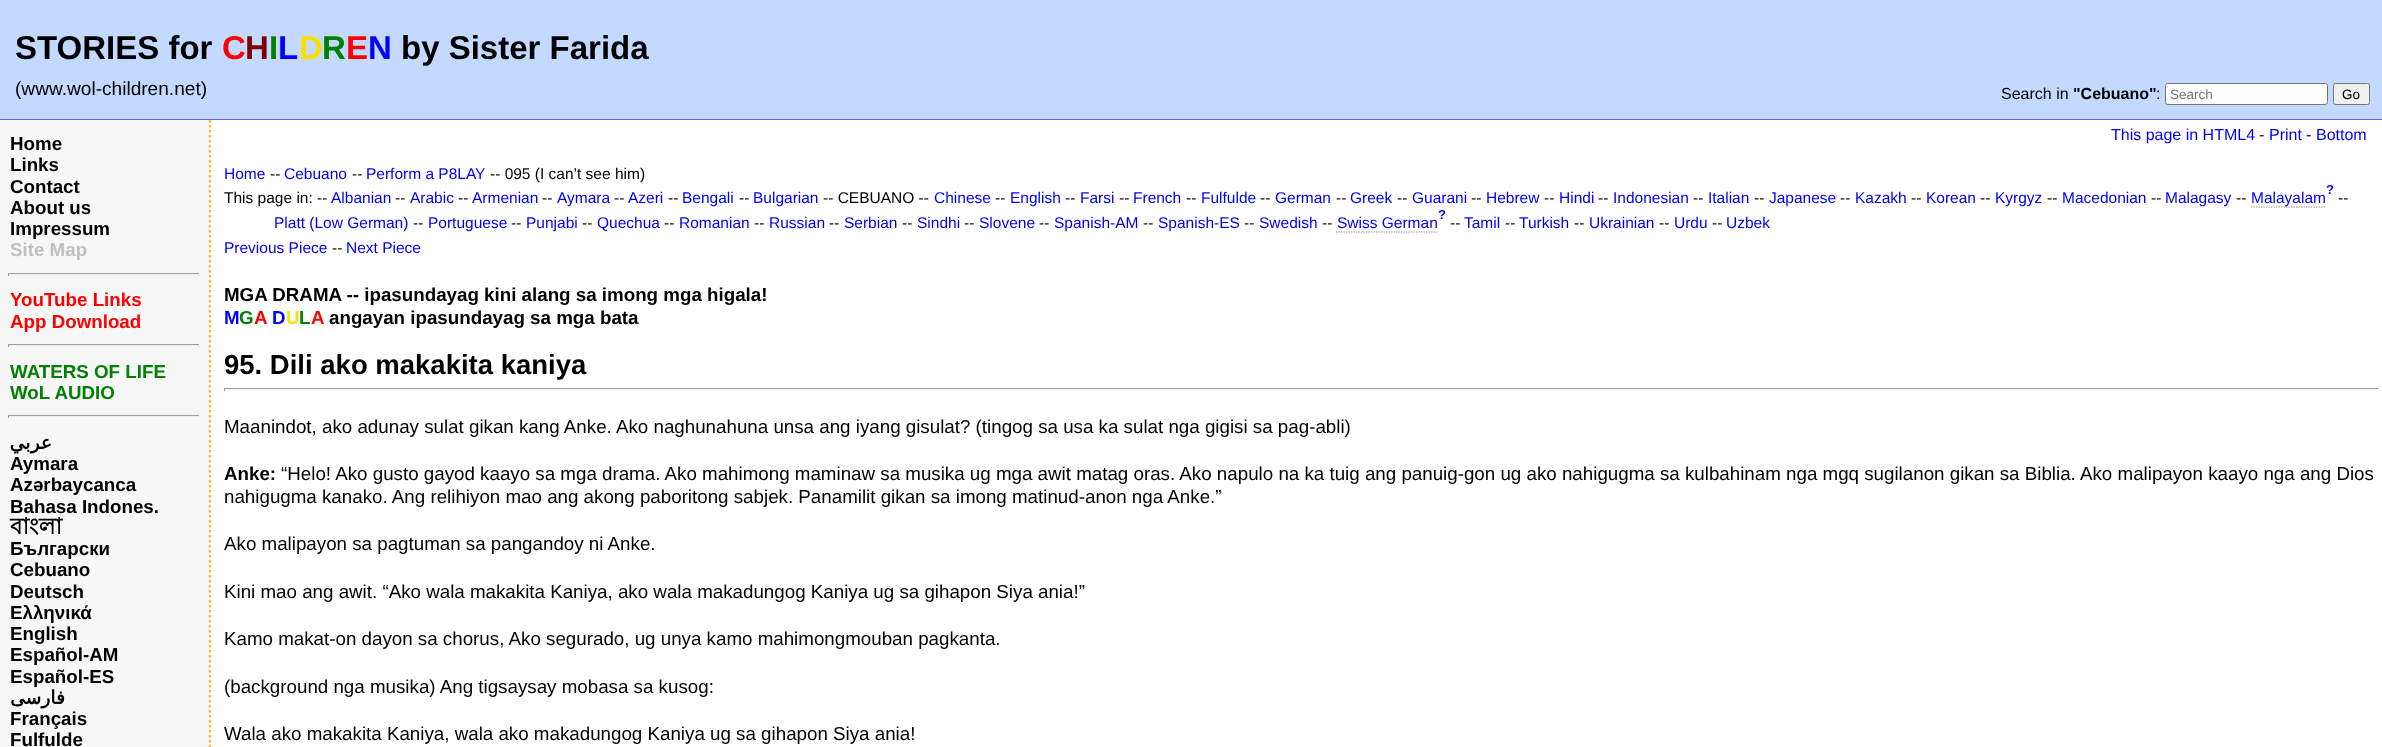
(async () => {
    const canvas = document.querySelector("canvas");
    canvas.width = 2382;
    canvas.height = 747;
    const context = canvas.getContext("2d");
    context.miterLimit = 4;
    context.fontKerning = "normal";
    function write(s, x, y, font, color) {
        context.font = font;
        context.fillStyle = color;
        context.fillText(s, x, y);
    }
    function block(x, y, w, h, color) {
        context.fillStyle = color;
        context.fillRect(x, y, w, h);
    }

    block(0, 0, 2382, 747, "rgb(247, 247, 247)");
    block(0, 0, 2382, 119, "rgb(195, 217, 255)");
    block(0, 119, 2382, 1, "rgb(95, 102, 238)");
    write("STORIES for", 15, 59, "bold 33px Liberation Sans", "rgb(0, 0, 0)");
    write("C", 222, 59, "bold 33px Liberation Sans", "rgb(255, 0, 0)");
    write("H", 245, 59, "bold 33px Liberation Sans", "rgb(128, 0, 0)");
    write("I", 269, 59, "bold 33px Liberation Sans", "rgb(0, 128, 0)");
    write("L", 278, 59, "bold 33px Liberation Sans", "rgb(0, 0, 255)");
    write("D", 299, 59, "bold 33px Liberation Sans", "rgb(249, 224, 0)");
    write("R", 322, 59, "bold 33px Liberation Sans", "rgb(0, 128, 0)");
    write("E", 346, 59, "bold 33px Liberation Sans", "rgb(255, 0, 0)");
    write("N", 368, 59, "bold 33px Liberation Sans", "rgb(0, 0, 255)");
    write("by Sister Farida", 401, 59, "bold 33px Liberation Sans", "rgb(0, 0, 0)");
    write("(www.wol-children.net)", 15, 95, "19.1px Liberation Sans", "rgb(0, 0, 0)");
    write("Search in", 2001, 99, "16px Liberation Sans", "rgb(0, 0, 0)");
    write("\"Cebuano\"", 2073, 99, "bold 16px Liberation Sans", "rgb(0, 0, 0)");
    write(":", 2156, 99, "16px Liberation Sans", "rgb(0, 0, 0)");
    context.fillStyle = "rgb(255, 255, 255)";
    context.beginPath();
    context.roundRect(2165.5, 83.5, 162, 21, 2);
    context.fill();
    context.strokeStyle = "rgb(118, 118, 118)";
    context.stroke();
    write("Search", 2170, 99, "13.5px Liberation Sans", "rgb(117, 117, 117)");
    context.fillStyle = "rgb(239, 239, 239)";
    context.beginPath();
    context.roundRect(2333.5, 83.5, 36, 21, 2);
    context.fill();
    context.stroke();
    write("Go", 2342, 99, "13.5px Liberation Sans", "rgb(0, 0, 0)");
    context.beginPath();
    context.moveTo(210, 120);
    context.lineTo(210, 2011);
    context.strokeStyle = "rgb(250, 189, 35)";
    context.lineWidth = 2.5;
    context.setLineDash([2.5, 2.5]);
    context.stroke();
    write("Home", 10, 150, "bold 18.75px Liberation Sans", "rgb(0, 0, 0)");
    write("Links", 10, 171, "bold 18.75px Liberation Sans", "rgb(0, 0, 0)");
    write("Contact", 10, 193, "bold 18.75px Liberation Sans", "rgb(0, 0, 0)");
    write("About us", 10, 214, "bold 18.75px Liberation Sans", "rgb(0, 0, 0)");
    write("Impressum", 10, 235, "bold 18.75px Liberation Sans", "rgb(0, 0, 0)");
    write("Site Map", 10, 256, "bold 18.75px Liberation Sans", "rgb(192, 192, 192)");
    block(8, 273, 192, 1, "rgb(159, 159, 159)");
    block(199, 273, 1, 3, "rgb(238, 238, 238)");
    block(8, 274, 192, 1, "rgb(238, 238, 238)");
    block(8, 273, 1, 3, "rgb(159, 159, 159)");
    write("YouTube Links", 10, 306, "bold 18.75px Liberation Sans", "rgb(255, 0, 0)");
    write("App Download", 10, 328, "bold 18.75px Liberation Sans", "rgb(255, 0, 0)");
    block(8, 344, 192, 1, "rgb(159, 159, 159)");
    block(199, 344, 1, 3, "rgb(238, 238, 238)");
    block(8, 345, 192, 1, "rgb(238, 238, 238)");
    block(8, 344, 1, 3, "rgb(159, 159, 159)");
    write("WATERS OF LIFE", 10, 378, "bold 18.75px Liberation Sans", "rgb(0, 128, 0)");
    write("WoL AUDIO", 10, 399, "bold 18.75px Liberation Sans", "rgb(0, 128, 0)");
    block(8, 415, 192, 1, "rgb(159, 159, 159)");
    block(199, 415, 1, 3, "rgb(238, 238, 238)");
    block(8, 416, 192, 1, "rgb(238, 238, 238)");
    block(8, 415, 1, 3, "rgb(159, 159, 159)");
    context.direction = "rtl";
    write("عربي", 52, 449, "bold 18.75px DejaVu Sans", "rgb(0, 0, 0)");
    context.direction = "ltr";
    write("Aymara", 10, 470, "bold 18.75px Liberation Sans", "rgb(0, 0, 0)");
    write("Azərbaycanca", 10, 491, "bold 18.75px Liberation Sans", "rgb(0, 0, 0)");
    write("Bahasa Indones.", 10, 513, "bold 18.75px Liberation Sans", "rgb(0, 0, 0)");
    write("বাংলা", 10, 534, "bold 22.5px Lohit Bengali", "rgb(0, 0, 0)");
    write("Български", 10, 555, "bold 18.75px Liberation Sans", "rgb(0, 0, 0)");
    write("Cebuano", 10, 576, "bold 18.75px Liberation Sans", "rgb(0, 0, 0)");
    write("Deutsch", 10, 598, "bold 18.75px Liberation Sans", "rgb(0, 0, 0)");
    write("Ελληνικά", 10, 619, "bold 18.75px Liberation Sans", "rgb(0, 0, 0)");
    write("English", 10, 640, "bold 18.75px Liberation Sans", "rgb(0, 0, 0)");
    write("Español-AM", 10, 661, "bold 18.75px Liberation Sans", "rgb(0, 0, 0)");
    write("Español-ES", 10, 683, "bold 18.75px Liberation Sans", "rgb(0, 0, 0)");
    context.direction = "rtl";
    write("فارسی", 65, 704, "bold 18.75px DejaVu Sans", "rgb(0, 0, 0)");
    context.direction = "ltr";
    write("Français", 10, 725, "bold 18.75px Liberation Sans", "rgb(0, 0, 0)");
    write("Fulfulde", 10, 746, "bold 18.75px Liberation Sans", "rgb(0, 0, 0)");
    block(211, 120, 2171, 627, "rgb(255, 255, 255)");
    write("This page in HTML4", 2111, 140, "16px Liberation Sans", "rgb(0, 0, 238)");
    write("-", 2259, 140, "16px Liberation Sans", "rgb(0, 0, 0)");
    write("Print", 2269, 140, "16px Liberation Sans", "rgb(0, 0, 238)");
    write("-", 2306, 140, "16px Liberation Sans", "rgb(0, 0, 0)");
    write("Bottom", 2316, 140, "16px Liberation Sans", "rgb(0, 0, 238)");
    write("Home", 224, 179, "15.5px Liberation Sans", "rgb(0, 0, 238)");
    write("--", 270, 179, "15.5px Liberation Sans", "rgb(0, 0, 0)");
    write("Cebuano", 284, 179, "15.5px Liberation Sans", "rgb(0, 0, 238)");
    write("--", 352, 179, "15.5px Liberation Sans", "rgb(0, 0, 0)");
    write("Perform a P8LAY", 366, 179, "15.5px Liberation Sans", "rgb(0, 0, 238)");
    write("-- 095 (I can’t see him)", 490, 179, "15.5px Liberation Sans", "rgb(0, 0, 0)");
    write("?", 2326, 194, "bold 13px Liberation Sans", "rgb(0, 0, 238)");
    write("This page in: --", 224, 203, "15.5px Liberation Sans", "rgb(0, 0, 0)");
    write("Albanian", 331, 203, "15.5px Liberation Sans", "rgb(0, 0, 238)");
    write("--", 395, 203, "15.5px Liberation Sans", "rgb(0, 0, 0)");
    write("Arabic", 410, 203, "15.5px Liberation Sans", "rgb(0, 0, 238)");
    write("--", 458, 203, "15.5px Liberation Sans", "rgb(0, 0, 0)");
    write("Armenian", 472, 203, "15.5px Liberation Sans", "rgb(0, 0, 238)");
    write("--", 542, 203, "15.5px Liberation Sans", "rgb(0, 0, 0)");
    write("Aymara", 557, 203, "15.5px Liberation Sans", "rgb(0, 0, 238)");
    write("--", 614, 203, "15.5px Liberation Sans", "rgb(0, 0, 0)");
    write("Azeri", 628, 203, "15.5px Liberation Sans", "rgb(0, 0, 238)");
    write("--", 668, 203, "15.5px Liberation Sans", "rgb(0, 0, 0)");
    write("Bengali", 682, 203, "15.5px Liberation Sans", "rgb(0, 0, 238)");
    write("--", 739, 203, "15.5px Liberation Sans", "rgb(0, 0, 0)");
    write("Bulgarian", 753, 203, "15.5px Liberation Sans", "rgb(0, 0, 238)");
    write("-- CEBUANO --", 823, 203, "15.5px Liberation Sans", "rgb(0, 0, 0)");
    write("Chinese", 934, 203, "15.5px Liberation Sans", "rgb(0, 0, 238)");
    write("--", 995, 203, "15.5px Liberation Sans", "rgb(0, 0, 0)");
    write("English", 1010, 203, "15.5px Liberation Sans", "rgb(0, 0, 238)");
    write("--", 1065, 203, "15.5px Liberation Sans", "rgb(0, 0, 0)");
    write("Farsi", 1080, 203, "15.5px Liberation Sans", "rgb(0, 0, 238)");
    write("--", 1119, 203, "15.5px Liberation Sans", "rgb(0, 0, 0)");
    write("French", 1133, 203, "15.5px Liberation Sans", "rgb(0, 0, 238)");
    write("--", 1186, 203, "15.5px Liberation Sans", "rgb(0, 0, 0)");
    write("Fulfulde", 1201, 203, "15.5px Liberation Sans", "rgb(0, 0, 238)");
    write("--", 1260, 203, "15.5px Liberation Sans", "rgb(0, 0, 0)");
    write("German", 1275, 203, "15.5px Liberation Sans", "rgb(0, 0, 238)");
    write("--", 1336, 203, "15.5px Liberation Sans", "rgb(0, 0, 0)");
    write("Greek", 1350, 203, "15.5px Liberation Sans", "rgb(0, 0, 238)");
    write("--", 1397, 203, "15.5px Liberation Sans", "rgb(0, 0, 0)");
    write("Guarani", 1412, 203, "15.5px Liberation Sans", "rgb(0, 0, 238)");
    write("--", 1471, 203, "15.5px Liberation Sans", "rgb(0, 0, 0)");
    write("Hebrew", 1486, 203, "15.5px Liberation Sans", "rgb(0, 0, 238)");
    write("--", 1544, 203, "15.5px Liberation Sans", "rgb(0, 0, 0)");
    write("Hindi", 1559, 203, "15.5px Liberation Sans", "rgb(0, 0, 238)");
    write("--", 1598, 203, "15.5px Liberation Sans", "rgb(0, 0, 0)");
    write("Indonesian", 1613, 203, "15.5px Liberation Sans", "rgb(0, 0, 238)");
    write("--", 1693, 203, "15.5px Liberation Sans", "rgb(0, 0, 0)");
    write("Italian", 1708, 203, "15.5px Liberation Sans", "rgb(0, 0, 238)");
    write("--", 1754, 203, "15.5px Liberation Sans", "rgb(0, 0, 0)");
    write("Japanese", 1769, 203, "15.5px Liberation Sans", "rgb(0, 0, 238)");
    write("--", 1840, 203, "15.5px Liberation Sans", "rgb(0, 0, 0)");
    write("Kazakh", 1855, 203, "15.5px Liberation Sans", "rgb(0, 0, 238)");
    write("--", 1911, 203, "15.5px Liberation Sans", "rgb(0, 0, 0)");
    write("Korean", 1926, 203, "15.5px Liberation Sans", "rgb(0, 0, 238)");
    write("--", 1980, 203, "15.5px Liberation Sans", "rgb(0, 0, 0)");
    write("Kyrgyz", 1995, 203, "15.5px Liberation Sans", "rgb(0, 0, 238)");
    write("--", 2047, 203, "15.5px Liberation Sans", "rgb(0, 0, 0)");
    write("Macedonian", 2062, 203, "15.5px Liberation Sans", "rgb(0, 0, 238)");
    write("--", 2151, 203, "15.5px Liberation Sans", "rgb(0, 0, 0)");
    write("Malagasy", 2165, 203, "15.5px Liberation Sans", "rgb(0, 0, 238)");
    write("--", 2236, 203, "15.5px Liberation Sans", "rgb(0, 0, 0)");
    context.beginPath();
    context.moveTo(2251, 207);
    context.lineTo(2326, 207);
    context.strokeStyle = "rgb(128, 128, 128)";
    context.lineWidth = 1.2;
    context.setLineDash([1.25, 1.25]);
    context.stroke();
    write("Malayalam", 2251, 203, "15.5px Liberation Sans", "rgb(0, 0, 238)");
    write("--", 2338, 203, "15.5px Liberation Sans", "rgb(0, 0, 0)");
    write("?", 1438, 219, "bold 13px Liberation Sans", "rgb(0, 0, 238)");
    write("Platt (Low German)", 274, 228, "15.5px Liberation Sans", "rgb(0, 0, 238)");
    write("--", 413, 228, "15.5px Liberation Sans", "rgb(0, 0, 0)");
    write("Portuguese", 428, 228, "15.5px Liberation Sans", "rgb(0, 0, 238)");
    write("--", 511, 228, "15.5px Liberation Sans", "rgb(0, 0, 0)");
    write("Punjabi", 526, 228, "15.5px Liberation Sans", "rgb(0, 0, 238)");
    write("--", 582, 228, "15.5px Liberation Sans", "rgb(0, 0, 0)");
    write("Quechua", 597, 228, "15.5px Liberation Sans", "rgb(0, 0, 238)");
    write("--", 664, 228, "15.5px Liberation Sans", "rgb(0, 0, 0)");
    write("Romanian", 679, 228, "15.5px Liberation Sans", "rgb(0, 0, 238)");
    write("--", 754, 228, "15.5px Liberation Sans", "rgb(0, 0, 0)");
    write("Russian", 769, 228, "15.5px Liberation Sans", "rgb(0, 0, 238)");
    write("--", 829, 228, "15.5px Liberation Sans", "rgb(0, 0, 0)");
    write("Serbian", 844, 228, "15.5px Liberation Sans", "rgb(0, 0, 238)");
    write("--", 902, 228, "15.5px Liberation Sans", "rgb(0, 0, 0)");
    write("Sindhi", 917, 228, "15.5px Liberation Sans", "rgb(0, 0, 238)");
    write("--", 964, 228, "15.5px Liberation Sans", "rgb(0, 0, 0)");
    write("Slovene", 979, 228, "15.5px Liberation Sans", "rgb(0, 0, 238)");
    write("--", 1039, 228, "15.5px Liberation Sans", "rgb(0, 0, 0)");
    write("Spanish-AM", 1054, 228, "15.5px Liberation Sans", "rgb(0, 0, 238)");
    write("--", 1143, 228, "15.5px Liberation Sans", "rgb(0, 0, 0)");
    write("Spanish-ES", 1158, 228, "15.5px Liberation Sans", "rgb(0, 0, 238)");
    write("--", 1244, 228, "15.5px Liberation Sans", "rgb(0, 0, 0)");
    write("Swedish", 1259, 228, "15.5px Liberation Sans", "rgb(0, 0, 238)");
    write("--", 1322, 228, "15.5px Liberation Sans", "rgb(0, 0, 0)");
    write("Swiss German", 1337, 228, "15.5px Liberation Sans", "rgb(0, 0, 238)");
    context.beginPath();
    context.moveTo(1336, 232);
    context.lineTo(1437.5, 232);
    context.stroke();
    write("--", 1450, 228, "15.5px Liberation Sans", "rgb(0, 0, 0)");
    write("Tamil", 1464, 228, "15.5px Liberation Sans", "rgb(0, 0, 238)");
    write("--", 1505, 228, "15.5px Liberation Sans", "rgb(0, 0, 0)");
    write("Turkish", 1519, 228, "15.5px Liberation Sans", "rgb(0, 0, 238)");
    write("--", 1574, 228, "15.5px Liberation Sans", "rgb(0, 0, 0)");
    write("Ukrainian", 1589, 228, "15.5px Liberation Sans", "rgb(0, 0, 238)");
    write("--", 1659, 228, "15.5px Liberation Sans", "rgb(0, 0, 0)");
    write("Urdu", 1674, 228, "15.5px Liberation Sans", "rgb(0, 0, 238)");
    write("--", 1712, 228, "15.5px Liberation Sans", "rgb(0, 0, 0)");
    write("Uzbek", 1726, 228, "15.5px Liberation Sans", "rgb(0, 0, 238)");
    write("Previous Piece", 224, 253, "15.5px Liberation Sans", "rgb(0, 0, 238)");
    write("--", 332, 253, "15.5px Liberation Sans", "rgb(0, 0, 0)");
    write("Next Piece", 346, 253, "15.5px Liberation Sans", "rgb(0, 0, 238)");
    write("MGA DRAMA -- ipasundayag kini alang sa imong mga higala!", 224, 301, "bold 18.75px Liberation Sans", "rgb(0, 0, 0)");
    write("M", 224, 324, "bold 18.75px Liberation Sans", "rgb(0, 0, 255)");
    write("G", 239, 324, "bold 18.75px Liberation Sans", "rgb(0, 128, 0)");
    write("A", 254, 324, "bold 18.75px Liberation Sans", "rgb(255, 0, 0)");
    write("D", 272, 324, "bold 18.75px Liberation Sans", "rgb(0, 0, 255)");
    write("U", 286, 324, "bold 18.75px Liberation Sans", "rgb(249, 224, 0)");
    write("L", 299, 324, "bold 18.75px Liberation Sans", "rgb(0, 128, 0)");
    write("A", 311, 324, "bold 18.75px Liberation Sans", "rgb(255, 0, 0)");
    write("angayan ipasundayag sa mga bata", 329, 324, "bold 18.75px Liberation Sans", "rgb(0, 0, 0)");
    write("95. Dili ako makakita kaniya", 224, 374, "bold 27.5px Liberation Sans", "rgb(0, 0, 0)");
    block(224, 388, 2155, 1, "rgb(159, 159, 159)");
    block(2378, 388, 1, 3, "rgb(238, 238, 238)");
    block(224, 389, 2155, 1, "rgb(238, 238, 238)");
    block(224, 388, 1, 3, "rgb(159, 159, 159)");
    write("Maanindot, ako adunay sulat gikan kang Anke. Ako naghunahuna unsa ang iyang gisulat? (tingog sa usa ka sulat nga gigisi sa pag-abli)", 224, 433, "18.75px Liberation Sans", "rgb(0, 0, 0)");
    write("Anke:", 224, 480, "bold 18.75px Liberation Sans", "rgb(0, 0, 0)");
    write("“Helo! Ako gusto gayod kaayo sa mga drama. Ako mahimong maminaw sa musika ug mga awit matag oras. Ako napulo na ka tuig ang panuig-gon ug ako nahigugma sa kulbahinam nga mgq sugilanon gikan sa Biblia. Ako malipayon kaayo nga ang Dios", 281, 480, "18.75px Liberation Sans", "rgb(0, 0, 0)");
    write("nahigugma kanako. Ang relihiyon mao ang akong paboritong sabjek. Panamilit gikan sa imong matinud-anon nga Anke.”", 224, 503, "18.75px Liberation Sans", "rgb(0, 0, 0)");
    write("Ako malipayon sa pagtuman sa pangandoy ni Anke.", 224, 550, "18.75px Liberation Sans", "rgb(0, 0, 0)");
    write("Kini mao ang awit. “Ako wala makakita Kaniya, ako wala makadungog Kaniya ug sa gihapon Siya ania!”", 224, 598, "18.75px Liberation Sans", "rgb(0, 0, 0)");
    write("Kamo makat-on dayon sa chorus, Ako segurado, ug unya kamo mahimongmouban pagkanta.", 224, 645, "18.75px Liberation Sans", "rgb(0, 0, 0)");
    write("(background nga musika) Ang tigsaysay mobasa sa kusog:", 224, 693, "18.75px Liberation Sans", "rgb(0, 0, 0)");
    write("Wala ako makakita Kaniya, wala ako makadungog Kaniya ug sa gihapon Siya ania!", 224, 740, "18.75px Liberation Sans", "rgb(0, 0, 0)");
})();
